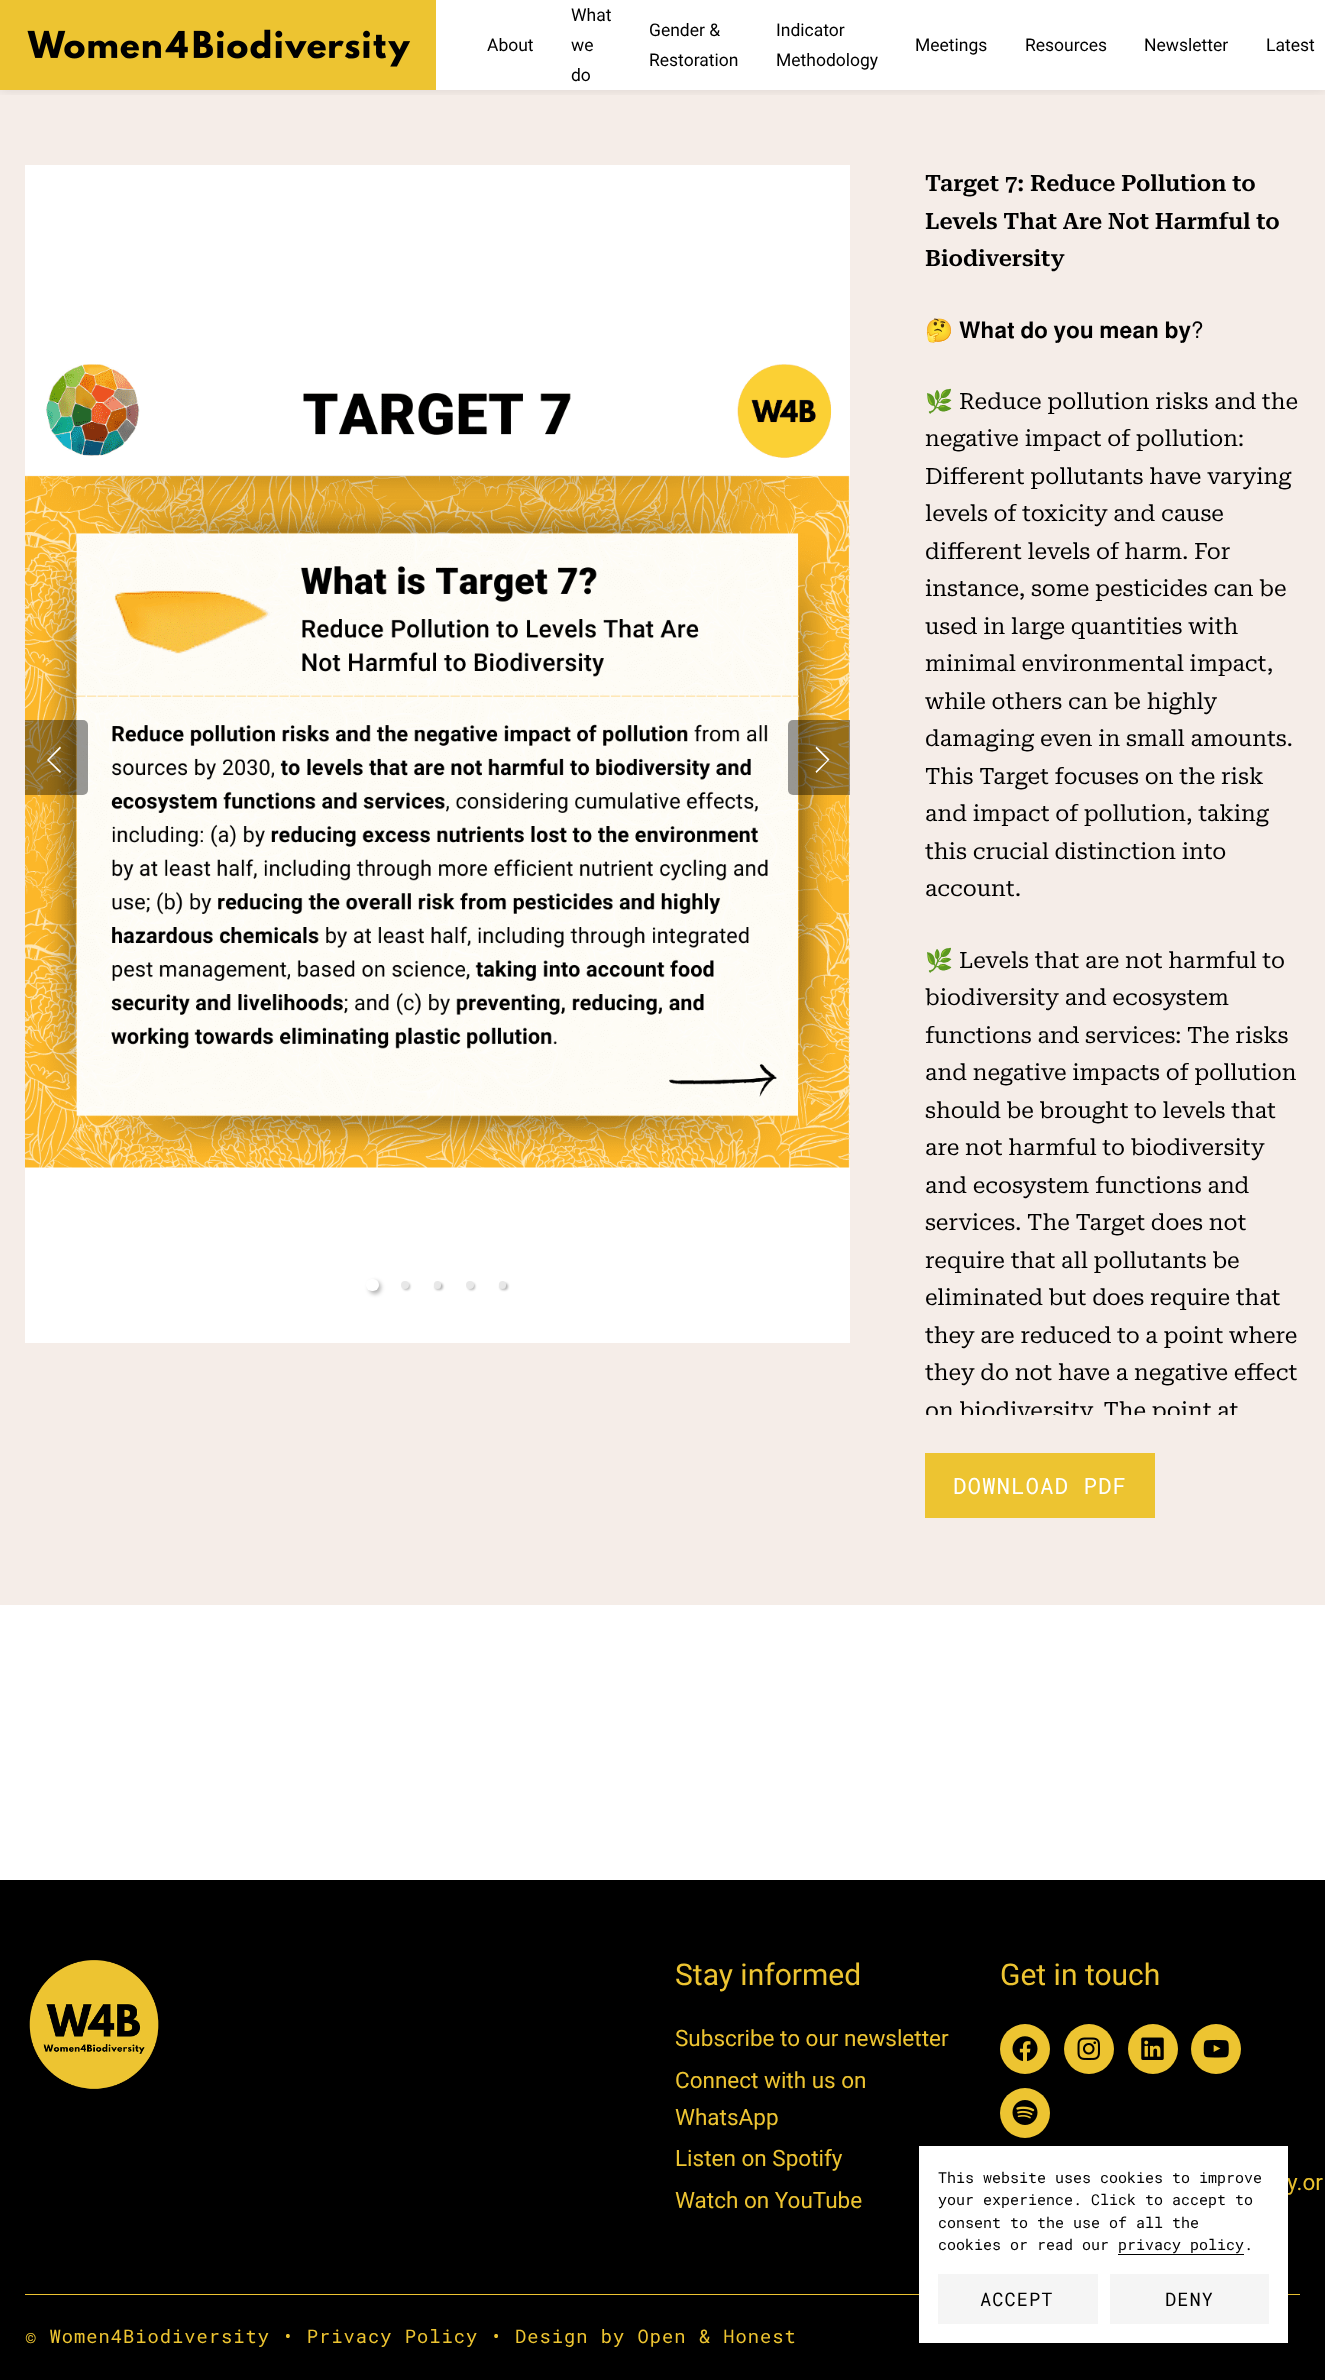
(async () => {
    const canvas = document.querySelector("canvas");
    canvas.width = 1325;
    canvas.height = 2380;
    const context = canvas.getContext("2d");
    context.miterLimit = 4;
    context.fontKerning = "normal";
    function write(s, x, y, font, color) {
        context.font = font;
        context.fillStyle = color;
        context.fillText(s, x, y);
    }
    function block(x, y, w, h, color) {
        context.fillStyle = color;
        context.fillRect(x, y, w, h);
    }
    function card(x, y, w, h, r, color) {
        context.fillStyle = color;
        context.beginPath();
        context.roundRect(x, y, w, h, r);
        context.fill();
    }
    async function photo(src, x, y, w, h) {
        const img = new Image();
        img.src = src;
        await img.decode();
        context.drawImage(img, x, y, w, h);
    }

    block(0, 0, 1325, 2380, "rgb(255, 255, 255)");
    block(0, 90, 1325, 1515, "rgb(245, 237, 232)");
    context.save();
    context.beginPath();
    context.rect(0, 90, 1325, 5);
    context.clip();
    context.fillStyle = "rgba(0, 0, 0, 0.1)";
    context.filter = "blur(6px)";
    context.beginPath();
    context.rect(0, 0, 1325, 90);
    context.fill();
    context.filter = "none";
    context.restore();
    await photo("media/1.png", 0, 0, 436, 90);
    write("About", 487, 51, "17.5px Roboto", "rgb(0, 0, 0)");
    write("What", 571, 21, "17.5px Roboto", "rgb(0, 0, 0)");
    write("we", 571, 51, "17.5px Roboto", "rgb(0, 0, 0)");
    write("do", 571, 81, "17.5px Roboto", "rgb(0, 0, 0)");
    write("Gender &", 649, 36, "17.5px Roboto", "rgb(0, 0, 0)");
    write("Restoration", 649, 66, "17.5px Roboto", "rgb(0, 0, 0)");
    write("Indicator", 776, 36, "17.5px Roboto", "rgb(0, 0, 0)");
    write("Methodology", 776, 66, "17.5px Roboto", "rgb(0, 0, 0)");
    write("Meetings", 915, 51, "17.5px Roboto", "rgb(0, 0, 0)");
    write("Resources", 1025, 51, "17.5px Roboto", "rgb(0, 0, 0)");
    write("Newsletter", 1144, 51, "17.5px Roboto", "rgb(0, 0, 0)");
    write("Latest", 1266, 51, "17.5px Roboto", "rgb(0, 0, 0)");
    block(25, 165, 825, 1178, "rgb(255, 255, 255)");
    await photo("media/2.png", 25, 364, 825, 804);
    context.fillStyle = "rgba(0, 0, 0, 0.4)";
    context.beginPath();
    context.roundRect(25, 720, 63, 75, [0, 5, 5, 0]);
    context.fill();
    context.fillStyle = "rgb(255, 255, 255)";
    context.beginPath();
    context.moveTo(61, 771.5);
    context.lineTo(60, 773);
    context.lineTo(47, 760);
    context.lineTo(60, 746.5);
    context.lineTo(61, 748);
    context.lineTo(49, 760);
    context.closePath();
    context.fill();
    context.fillStyle = "rgba(0, 0, 0, 0.4)";
    context.beginPath();
    context.roundRect(788, 720, 62, 75, [5, 0, 0, 5]);
    context.fill();
    context.fillStyle = "rgb(255, 255, 255)";
    context.beginPath();
    context.moveTo(815.5, 748);
    context.lineTo(816.5, 746.5);
    context.lineTo(829.5, 759.5);
    context.lineTo(816.5, 773);
    context.lineTo(815.5, 771.5);
    context.lineTo(827.5, 760);
    context.closePath();
    context.fill();
    context.fillStyle = "rgba(0, 0, 0, 0.3)";
    context.filter = "blur(2px)";
    context.beginPath();
    context.roundRect(369, 1281, 12, 13, 6);
    context.fill();
    context.filter = "none";
    card(366, 1279, 13, 12, 6, "rgb(255, 255, 255)");
    context.fillStyle = "rgba(0, 0, 0, 0.3)";
    context.filter = "blur(1px)";
    context.beginPath();
    context.roundRect(403, 1283, 7, 7, 3.5);
    context.fill();
    context.filter = "none";
    context.fillStyle = "rgb(232, 232, 232)";
    context.beginPath();
    context.arc(405, 1285, 4, 0, Math.PI * 2);
    context.fill();
    context.fillStyle = "rgba(0, 0, 0, 0.3)";
    context.filter = "blur(1px)";
    context.beginPath();
    context.roundRect(435, 1283, 8, 7, 3.5);
    context.fill();
    context.filter = "none";
    card(434, 1281, 7, 8, 3.5, "rgb(232, 232, 232)");
    context.fillStyle = "rgba(0, 0, 0, 0.3)";
    context.filter = "blur(1px)";
    context.beginPath();
    context.roundRect(468, 1283, 7, 7, 3.5);
    context.fill();
    context.filter = "none";
    context.fillStyle = "rgb(232, 232, 232)";
    context.beginPath();
    context.arc(470, 1285, 4, 0, Math.PI * 2);
    context.fill();
    context.fillStyle = "rgba(0, 0, 0, 0.3)";
    context.filter = "blur(1px)";
    context.beginPath();
    context.roundRect(500, 1283, 8, 7, 3.5);
    context.fill();
    context.filter = "none";
    card(499, 1281, 7, 8, 3.5, "rgb(232, 232, 232)");
    write("Target 7: Reduce Pollution to", 925, 191, "600 22.5px Roboto Serif", "rgb(0, 0, 0)");
    write("Levels That Are Not Harmful to", 925, 229, "600 22.5px Roboto Serif", "rgb(0, 0, 0)");
    write("Biodiversity", 925, 266, "600 22.5px Roboto Serif", "rgb(0, 0, 0)");
    write("🤔", 925, 338, "22.5px Noto Color Emoji", "rgb(0, 0, 0)");
    write("𝐖𝐡𝐚𝐭 𝐝𝐨 𝐲𝐨𝐮 𝐦𝐞𝐚𝐧 𝐛𝐲?", 959, 338, "22.5px FreeSans", "rgb(0, 0, 0)");
    write("🌿", 925, 409, "22.5px 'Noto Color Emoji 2'", "rgb(0, 0, 0)");
    write("Reduce pollution risks and the", 959, 409, "22.5px Roboto Serif", "rgb(0, 0, 0)");
    write("negative impact of pollution:", 925, 446, "22.5px Roboto Serif", "rgb(0, 0, 0)");
    write("Different pollutants have varying", 925, 484, "22.5px Roboto Serif", "rgb(0, 0, 0)");
    write("levels of toxicity and cause", 925, 521, "22.5px Roboto Serif", "rgb(0, 0, 0)");
    write("different levels of harm. For", 925, 559, "22.5px Roboto Serif", "rgb(0, 0, 0)");
    write("instance, some pesticides can be", 925, 596, "22.5px Roboto Serif", "rgb(0, 0, 0)");
    write("used in large quantities with", 925, 634, "22.5px Roboto Serif", "rgb(0, 0, 0)");
    write("minimal environmental impact,", 925, 671, "22.5px Roboto Serif", "rgb(0, 0, 0)");
    write("while others can be highly", 925, 709, "22.5px Roboto Serif", "rgb(0, 0, 0)");
    write("damaging even in small amounts.", 925, 746, "22.5px Roboto Serif", "rgb(0, 0, 0)");
    write("This Target focuses on the risk", 925, 784, "22.5px Roboto Serif", "rgb(0, 0, 0)");
    write("and impact of pollution, taking", 925, 821, "22.5px Roboto Serif", "rgb(0, 0, 0)");
    write("this crucial distinction into", 925, 859, "22.5px Roboto Serif", "rgb(0, 0, 0)");
    write("account.", 925, 896, "22.5px Roboto Serif", "rgb(0, 0, 0)");
    write("🌿", 925, 968, "22.5px 'Noto Color Emoji 2'", "rgb(0, 0, 0)");
    write("Levels that are not harmful to", 959, 968, "22.5px Roboto Serif", "rgb(0, 0, 0)");
    write("biodiversity and ecosystem", 925, 1005, "22.5px Roboto Serif", "rgb(0, 0, 0)");
    write("functions and services: The risks", 925, 1043, "22.5px Roboto Serif", "rgb(0, 0, 0)");
    write("and negative impacts of pollution", 925, 1080, "22.5px Roboto Serif", "rgb(0, 0, 0)");
    write("should be brought to levels that", 925, 1118, "22.5px Roboto Serif", "rgb(0, 0, 0)");
    write("are not harmful to biodiversity", 925, 1155, "22.5px Roboto Serif", "rgb(0, 0, 0)");
    write("and ecosystem functions and", 925, 1193, "22.5px Roboto Serif", "rgb(0, 0, 0)");
    write("services. The Target does not", 925, 1230, "22.5px Roboto Serif", "rgb(0, 0, 0)");
    write("require that all pollutants be", 925, 1268, "22.5px Roboto Serif", "rgb(0, 0, 0)");
    write("eliminated but does require that", 925, 1305, "22.5px Roboto Serif", "rgb(0, 0, 0)");
    write("they are reduced to a point where", 925, 1343, "22.5px Roboto Serif", "rgb(0, 0, 0)");
    write("they do not have a negative effect", 925, 1380, "22.5px Roboto Serif", "rgb(0, 0, 0)");
    context.save();
    context.beginPath();
    context.rect(925, 165, 375, 1250);
    context.clip();
    write("on biodiversity. The point at", 925, 1418, "22.5px Roboto Serif", "rgb(0, 0, 0)");
    context.restore();
    block(925, 1453, 230, 65, "rgb(237, 196, 49)");
    context.letterSpacing = "1px";
    write("DOWNLOAD PDF", 953, 1494, "22.5px Roboto Mono", "rgb(255, 255, 255)");
    block(0, 1880, 1325, 500, "rgb(0, 0, 0)");
    block(25, 2294, 1275, 1, "rgb(237, 196, 49)");
    await photo("media/3.png", 29, 1960, 130, 129);
    context.letterSpacing = "0px";
    write("Stay informed", 675, 1985, "30px Roboto", "rgb(237, 196, 49)");
    write("Subscribe to our newsletter", 675, 2046, "22.5px Roboto", "rgb(237, 196, 49)");
    write("Connect with us on", 675, 2088, "22.5px Roboto", "rgb(237, 196, 49)");
    write("WhatsApp", 675, 2125, "22.5px Roboto", "rgb(237, 196, 49)");
    write("Listen on Spotify", 675, 2166, "22.5px Roboto", "rgb(237, 196, 49)");
    write("Watch on YouTube", 675, 2208, "22.5px Roboto", "rgb(237, 196, 49)");
    write("Get in touch", 1000, 1985, "30px Roboto", "rgb(237, 196, 49)");
    context.beginPath();
    context.arc(1025, 2049, 25, 0, Math.PI * 2);
    context.fill();
    await photo("media/4.png", 1012, 2036, 26, 26);
    context.beginPath();
    context.arc(1089, 2049, 25, 0, Math.PI * 2);
    context.fill();
    await photo("media/5.png", 1077, 2037, 23, 23);
    context.beginPath();
    context.arc(1153, 2049, 25, 0, Math.PI * 2);
    context.fill();
    await photo("media/6.png", 1141, 2037, 23, 23);
    context.beginPath();
    context.arc(1216, 2049, 25, 0, Math.PI * 2);
    context.fill();
    await photo("media/7.png", 1203, 2039, 26, 19);
    context.beginPath();
    context.arc(1025, 2113, 25, 0, Math.PI * 2);
    context.fill();
    await photo("media/8.png", 1012, 2100, 26, 25);
    write("y.or", 1287, 2190, "22.5px Roboto", "rgb(237, 196, 49)");
    context.letterSpacing = "1px";
    write("© Women4Biodiversity • Privacy Policy • Design by Open & Honest", 25, 2343, "18.75px Roboto Mono", "rgb(237, 196, 49)");
    context.fillStyle = "rgba(0, 0, 0, 0.06)";
    context.filter = "blur(14px)";
    context.beginPath();
    context.rect(919, 2161, 369, 197);
    context.fill();
    context.filter = "none";
    context.fillStyle = "rgba(0, 0, 0, 0.05)";
    context.filter = "blur(4.5px)";
    context.beginPath();
    context.rect(919, 2149, 369, 196);
    context.fill();
    context.filter = "none";
    block(919, 2146, 369, 197, "rgb(255, 255, 255)");
    context.letterSpacing = "0px";
    write("This website uses cookies to improve", 938, 2183, "15px Roboto Mono", "rgb(0, 0, 0)");
    write("your experience. Click to accept to", 938, 2205, "15px Roboto Mono", "rgb(0, 0, 0)");
    write("consent to the use of all the", 938, 2228, "15px Roboto Mono", "rgb(0, 0, 0)");
    write("cookies or read our privacy policy.", 938, 2250, "15px Roboto Mono", "rgb(0, 0, 0)");
    block(1118, 2254, 126, 1, "rgb(0, 0, 0)");
    block(938, 2274, 160, 50, "rgb(245, 245, 245)");
    context.letterSpacing = "1px";
    write("ACCEPT", 980, 2306, "18.75px Roboto Mono", "rgb(0, 0, 0)");
    block(1110, 2274, 159, 50, "rgb(245, 245, 245)");
    write("DENY", 1165, 2306, "18.75px Roboto Mono", "rgb(0, 0, 0)");
})();
